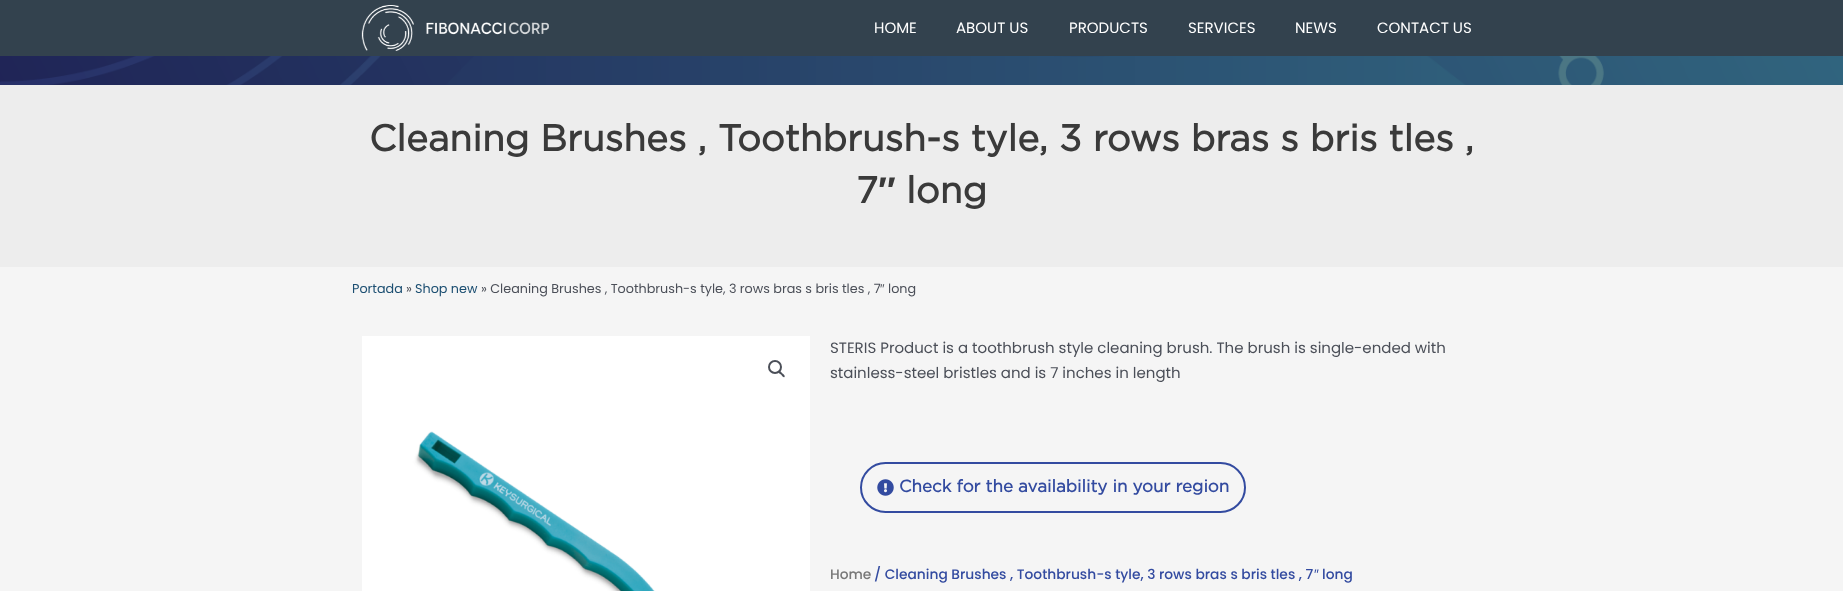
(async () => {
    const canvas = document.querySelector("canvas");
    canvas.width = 1843;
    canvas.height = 591;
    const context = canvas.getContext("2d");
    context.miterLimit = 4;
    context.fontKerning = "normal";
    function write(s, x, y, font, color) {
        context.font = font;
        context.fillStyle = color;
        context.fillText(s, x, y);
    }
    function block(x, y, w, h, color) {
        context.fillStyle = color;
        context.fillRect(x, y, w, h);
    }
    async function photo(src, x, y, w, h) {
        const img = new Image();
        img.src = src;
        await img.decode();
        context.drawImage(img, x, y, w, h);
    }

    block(0, 0, 1843, 591, "rgb(245, 245, 245)");
    block(0, 0, 1843, 56, "rgb(51, 66, 78)");
    await photo("media/1.png", 361, 5, 188, 46);
    write("HOME", 874, 33, "15px Poppins", "rgb(255, 255, 255)");
    write("ABOUT US", 956, 33, "15px Poppins", "rgb(255, 255, 255)");
    write("PRODUCTS", 1069, 33, "15px Poppins", "rgb(255, 255, 255)");
    write("SERVICES", 1188, 33, "15px Poppins", "rgb(255, 255, 255)");
    write("NEWS", 1295, 33, "15px Poppins", "rgb(255, 255, 255)");
    write("CONTACT US", 1377, 33, "15px Poppins", "rgb(255, 255, 255)");
    await photo("media/2.png", 0, 56, 1843, 29);
    block(0, 85, 1843, 182, "rgb(237, 237, 237)");
    write("Cleaning Brushes , Toothbrush-s tyle, 3 rows bras s bris tles ,", 369, 151, "bold 37px Gotham", "rgb(58, 58, 58)");
    write("7", 856, 203, "bold 37px Gotham", "rgb(58, 58, 58)");
    write("″", 878, 203, "bold 37px Liberation Sans", "rgb(58, 58, 58)");
    write("long", 906, 203, "bold 37px Gotham", "rgb(58, 58, 58)");
    write("Portada", 352, 293, "12.75px Poppins", "rgb(27, 78, 113)");
    write("Shop new", 415, 293, "12.75px Poppins", "rgb(27, 78, 113)");
    write("» Cleaning Brushes , Toothbrush-s tyle, 3 rows bras s bris tles , 7", 481, 293, "12.75px Poppins", "rgb(75, 79, 88)");
    write("″", 880, 293, "12.75px Liberation Sans", "rgb(75, 79, 88)");
    write("long", 888, 293, "12.75px Poppins", "rgb(75, 79, 88)");
    write("»", 406, 293, "12.75px Poppins", "rgb(75, 79, 88)");
    await photo("media/3.png", 362, 336, 448, 255);
    context.beginPath();
    context.arc(775, 367, 6, 0, Math.PI * 2);
    context.strokeStyle = "rgb(75, 79, 88)";
    context.lineWidth = 2;
    context.stroke();
    context.beginPath();
    context.moveTo(778.5, 371);
    context.bezierCurveTo(780, 370, 781.5, 372.5, 782, 373);
    context.bezierCurveTo(783, 374, 785.5, 375.5, 784.5, 377);
    context.bezierCurveTo(783, 378, 781.5, 375, 781, 374.5);
    context.bezierCurveTo(780, 374, 777.5, 372.5, 778.5, 371);
    context.closePath();
    context.fill();
    write("STERIS Product is a toothbrush style cleaning brush. The brush is single-ended with", 830, 353, "15px Poppins", "rgb(75, 79, 88)");
    write("stainless-steel bristles and is 7 inches in length", 830, 378, "15px Poppins", "rgb(75, 79, 88)");
    context.beginPath();
    context.roundRect(861, 463, 384, 49, 24.5);
    context.strokeStyle = "rgb(51, 75, 160)";
    context.stroke();
    await photo("media/4.png", 877, 479, 17, 17);
    write("Check for the availability in your region", 899, 492, "bold 17px Gotham", "rgb(51, 75, 160)");
    write("Home", 830, 579, "500 13.8px Poppins", "rgb(120, 120, 120)");
    write("/ Cleaning Brushes , Toothbrush-s tyle, 3 rows bras s bris tles , 7", 874, 579, "500 13.8px Poppins", "rgb(51, 75, 160)");
    write("″", 1314, 579, "13.8px Liberation Sans", "rgb(51, 75, 160)");
    write("long", 1322, 579, "500 13.8px Poppins", "rgb(51, 75, 160)");
})();
